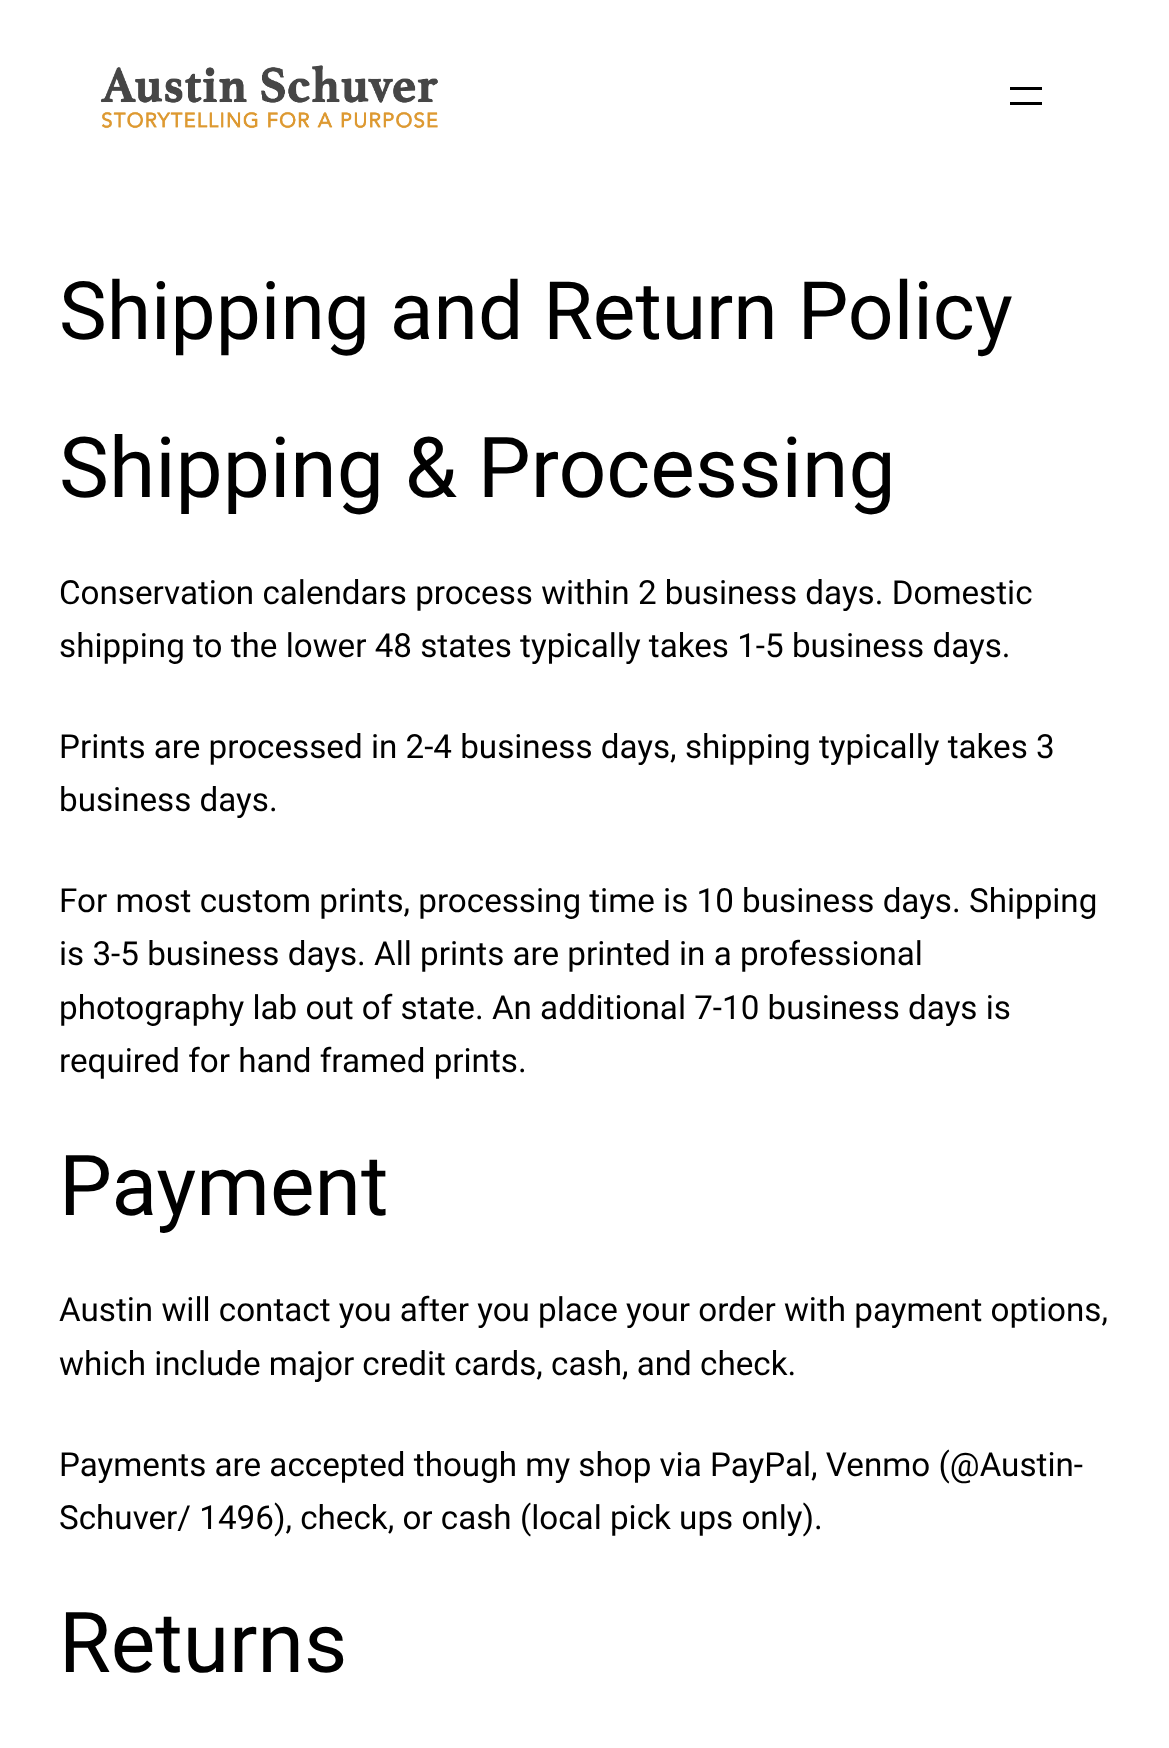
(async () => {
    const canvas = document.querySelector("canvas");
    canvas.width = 1169;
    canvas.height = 1748;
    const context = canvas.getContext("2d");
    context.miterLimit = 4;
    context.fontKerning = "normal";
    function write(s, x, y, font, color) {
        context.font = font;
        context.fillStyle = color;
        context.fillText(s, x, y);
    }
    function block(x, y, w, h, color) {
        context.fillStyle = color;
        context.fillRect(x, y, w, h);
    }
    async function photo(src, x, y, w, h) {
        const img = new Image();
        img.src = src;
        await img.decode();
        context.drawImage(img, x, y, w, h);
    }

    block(0, 0, 1169, 1748, "rgb(255, 255, 255)");
    await photo("media/1.png", 100, 65, 338, 64);
    block(1010, 87, 32, 3, "rgb(0, 0, 0)");
    block(1010, 102, 32, 3, "rgb(0, 0, 0)");
    write("Shipping and Return Policy", 59, 339, "80.4px Roboto", "rgb(0, 0, 0)");
    write("Shipping & Processing", 59, 497, "84px Roboto", "rgb(0, 0, 0)");
    write("Conservation calendars process within 2 business days. Domestic", 59, 604, "33.2px Roboto", "rgb(0, 0, 0)");
    write("shipping to the lower 48 states typically takes 1-5 business days.", 59, 657, "33.2px Roboto", "rgb(0, 0, 0)");
    write("Prints are processed in 2-4 business days, shipping typically takes 3", 59, 758, "33.2px Roboto", "rgb(0, 0, 0)");
    write("business days.", 59, 811, "33.2px Roboto", "rgb(0, 0, 0)");
    write("For most custom prints, processing time is 10 business days. Shipping", 59, 912, "33.2px Roboto", "rgb(0, 0, 0)");
    write("is 3-5 business days. All prints are printed in a professional", 59, 965, "33.2px Roboto", "rgb(0, 0, 0)");
    write("photography lab out of state. An additional 7-10 business days is", 59, 1019, "33.2px Roboto", "rgb(0, 0, 0)");
    write("required for hand framed prints.", 59, 1072, "33.2px Roboto", "rgb(0, 0, 0)");
    write("Payment", 59, 1215, "84px Roboto", "rgb(0, 0, 0)");
    write("Austin will contact you after you place your order with payment options,", 59, 1321, "33.2px Roboto", "rgb(0, 0, 0)");
    write("which include major credit cards, cash, and check.", 59, 1375, "33.2px Roboto", "rgb(0, 0, 0)");
    write("Payments are accepted though my shop via PayPal, Venmo (@Austin-", 59, 1476, "33.2px Roboto", "rgb(0, 0, 0)");
    write("Schuver/ 1496), check, or cash (local pick ups only).", 59, 1529, "33.2px Roboto", "rgb(0, 0, 0)");
    write("Returns", 59, 1672, "84px Roboto", "rgb(0, 0, 0)");
})();
